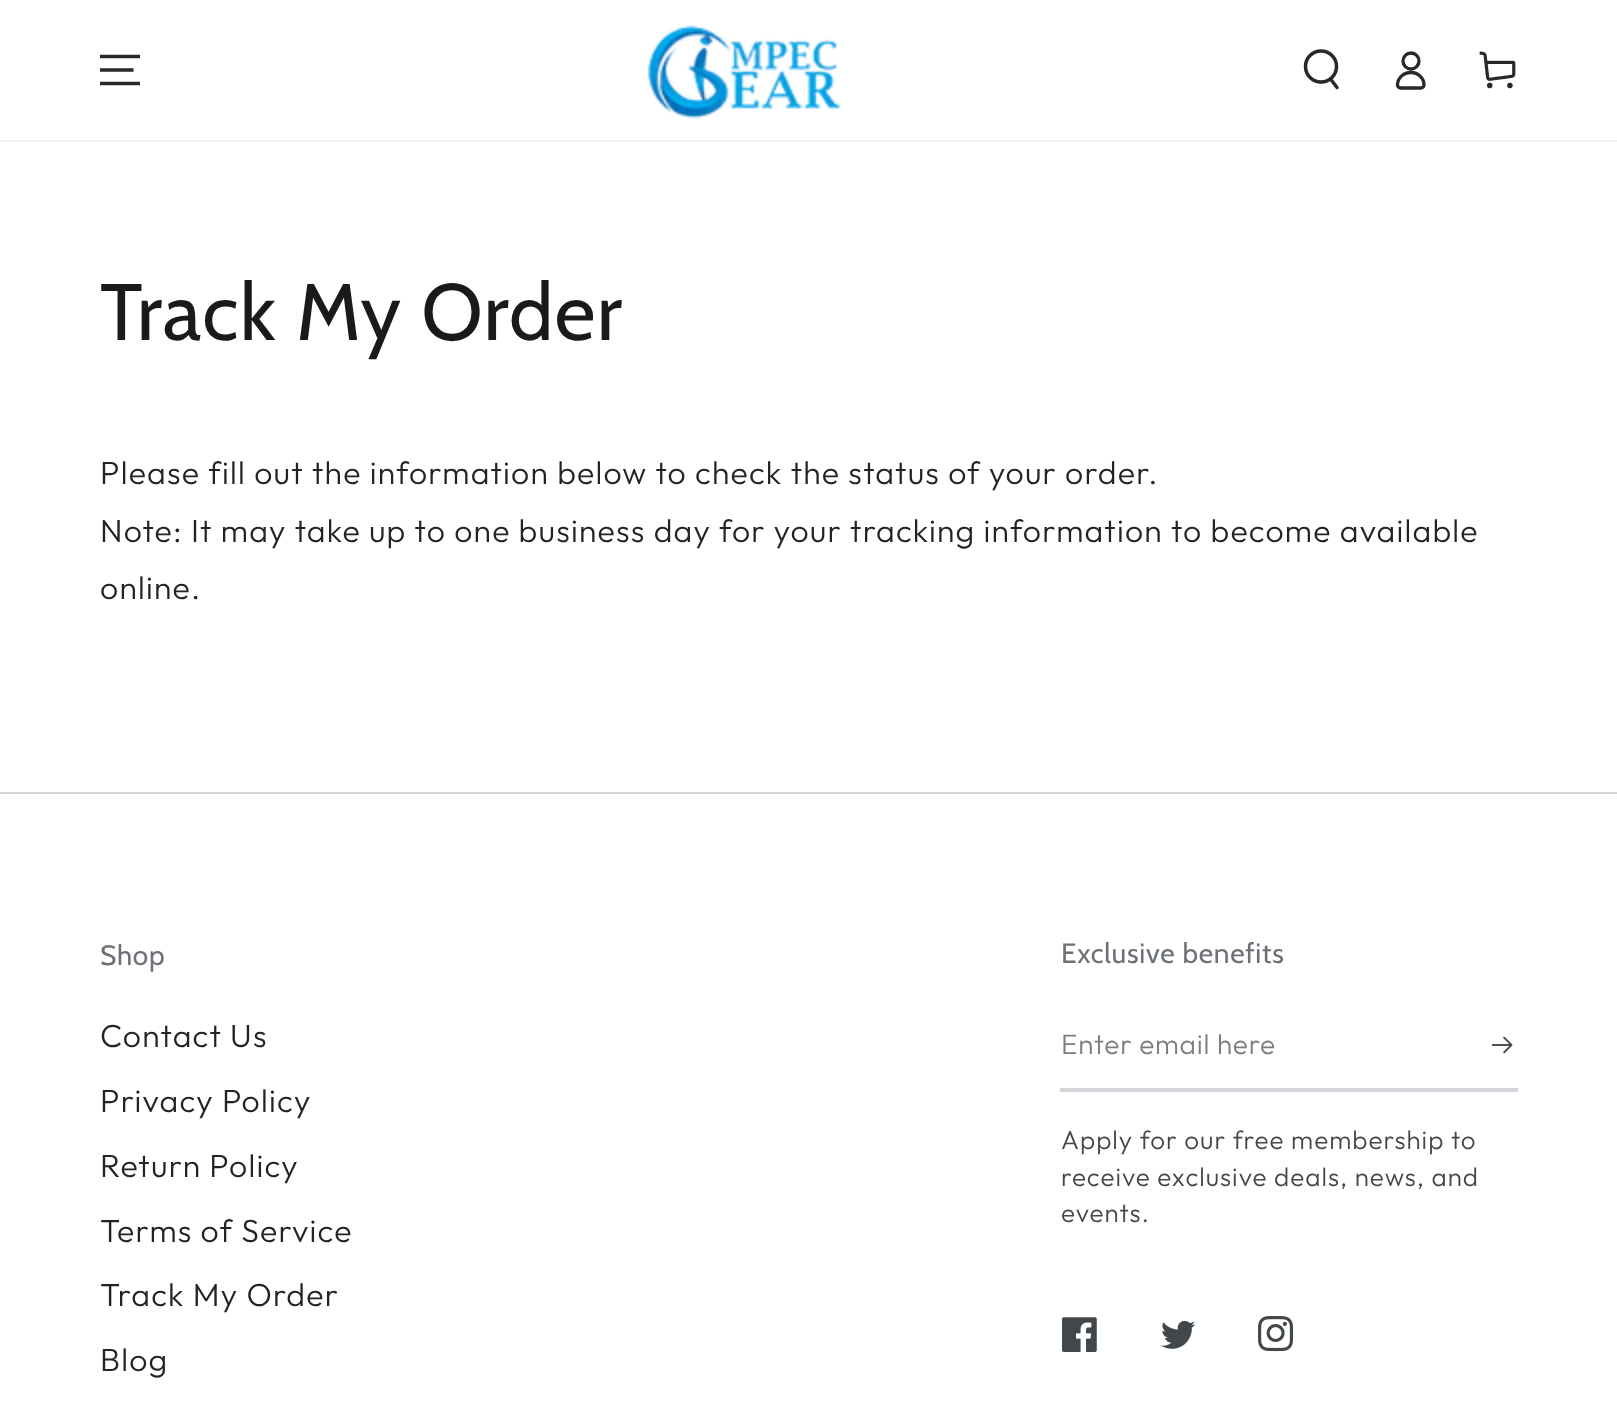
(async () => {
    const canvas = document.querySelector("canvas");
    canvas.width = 1617;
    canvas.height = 1418;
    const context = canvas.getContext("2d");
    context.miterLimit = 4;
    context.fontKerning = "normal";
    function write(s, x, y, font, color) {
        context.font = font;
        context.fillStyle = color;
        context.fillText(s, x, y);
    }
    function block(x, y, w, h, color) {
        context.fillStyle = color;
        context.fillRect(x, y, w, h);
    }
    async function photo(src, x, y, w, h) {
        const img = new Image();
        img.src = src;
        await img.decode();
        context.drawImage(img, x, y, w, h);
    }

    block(0, 0, 1617, 1418, "rgb(255, 255, 255)");
    block(0, 140, 1617, 2, "rgb(242, 242, 244)");
    context.beginPath();
    context.moveTo(100, 83.5);
    context.lineTo(140, 83.5);
    context.moveTo(100, 70);
    context.lineTo(133.5, 70);
    context.moveTo(100, 56.5);
    context.lineTo(140, 56.5);
    context.strokeStyle = "rgb(40, 40, 40)";
    context.lineWidth = 3.5;
    context.stroke();
    await photo("media/1.png", 647, 25, 194, 94);
    context.beginPath();
    context.arc(1321, 66.5, 15.5, 0, Math.PI * 2);
    context.stroke();
    context.beginPath();
    context.moveTo(1330.5, 79);
    context.lineTo(1337, 87.5);
    context.lineCap = "round";
    context.stroke();
    context.beginPath();
    context.moveTo(1411, 72.5);
    context.bezierCurveTo(1403.5, 72.5, 1397.5, 78, 1397.5, 85);
    context.bezierCurveTo(1397.5, 86.5, 1399, 88, 1400.5, 88);
    context.lineTo(1421, 88);
    context.bezierCurveTo(1422.5, 88, 1424, 86.5, 1424, 85);
    context.bezierCurveTo(1424, 78, 1418, 72.5, 1411, 72.5);
    context.closePath();
    context.lineWidth = 3.3;
    context.lineCap = "butt";
    context.stroke();
    context.beginPath();
    context.arc(1411, 61, 8, 0, Math.PI * 2);
    context.stroke();
    await photo("media/2.png", 1479, 51, 37, 38);
    context.letterSpacing = "1.2px";
    write("Track My Order", 100, 340, "80px Cabin", "rgb(26, 27, 24)");
    write("Please fill out the information below to check the status of your order.", 100, 484, "300 32px Outfit", "rgb(33, 35, 38)");
    write("Note: It may take up to one business day for your tracking information to become available", 100, 542, "300 32px Outfit", "rgb(33, 35, 38)");
    write("online.", 100, 599, "300 32px Outfit", "rgb(33, 35, 38)");
    block(0, 792, 1617, 2, "rgb(210, 213, 217)");
    context.letterSpacing = "0.75px";
    write("Shop", 100, 965, "28px Cabin", "rgb(107, 113, 119)");
    context.letterSpacing = "1.2px";
    write("Contact Us", 100, 1047, "300 32px Outfit", "rgb(33, 35, 38)");
    write("Privacy Policy", 100, 1112, "300 32px Outfit", "rgb(33, 35, 38)");
    write("Return Policy", 100, 1177, "300 32px Outfit", "rgb(33, 35, 38)");
    write("Terms of Service", 100, 1242, "300 32px Outfit", "rgb(33, 35, 38)");
    write("Track My Order", 100, 1306, "300 32px Outfit", "rgb(33, 35, 38)");
    write("Blog", 100, 1371, "300 32px Outfit", "rgb(33, 35, 38)");
    context.letterSpacing = "0.75px";
    write("Exclusive benefits", 1061, 963, "28px Cabin", "rgb(107, 113, 119)");
    block(1060, 1088, 458, 4, "rgb(210, 213, 217)");
    write("Enter email here", 1061, 1054, "300 28px Outfit", "rgb(123, 126, 130)");
    await photo("media/3.png", 1492, 1036, 21, 18);
    context.letterSpacing = "1px";
    write("Apply for our free membership to", 1061, 1149, "300 26px Outfit", "rgb(66, 71, 76)");
    write("receive exclusive deals, news, and", 1061, 1186, "300 26px Outfit", "rgb(66, 71, 76)");
    write("events.", 1061, 1222, "300 26px Outfit", "rgb(66, 71, 76)");
    await photo("media/4.png", 1062, 1317, 35, 35);
    await photo("media/5.png", 1161, 1320, 35, 29);
    await photo("media/6.png", 1258, 1316, 36, 36);
})();
